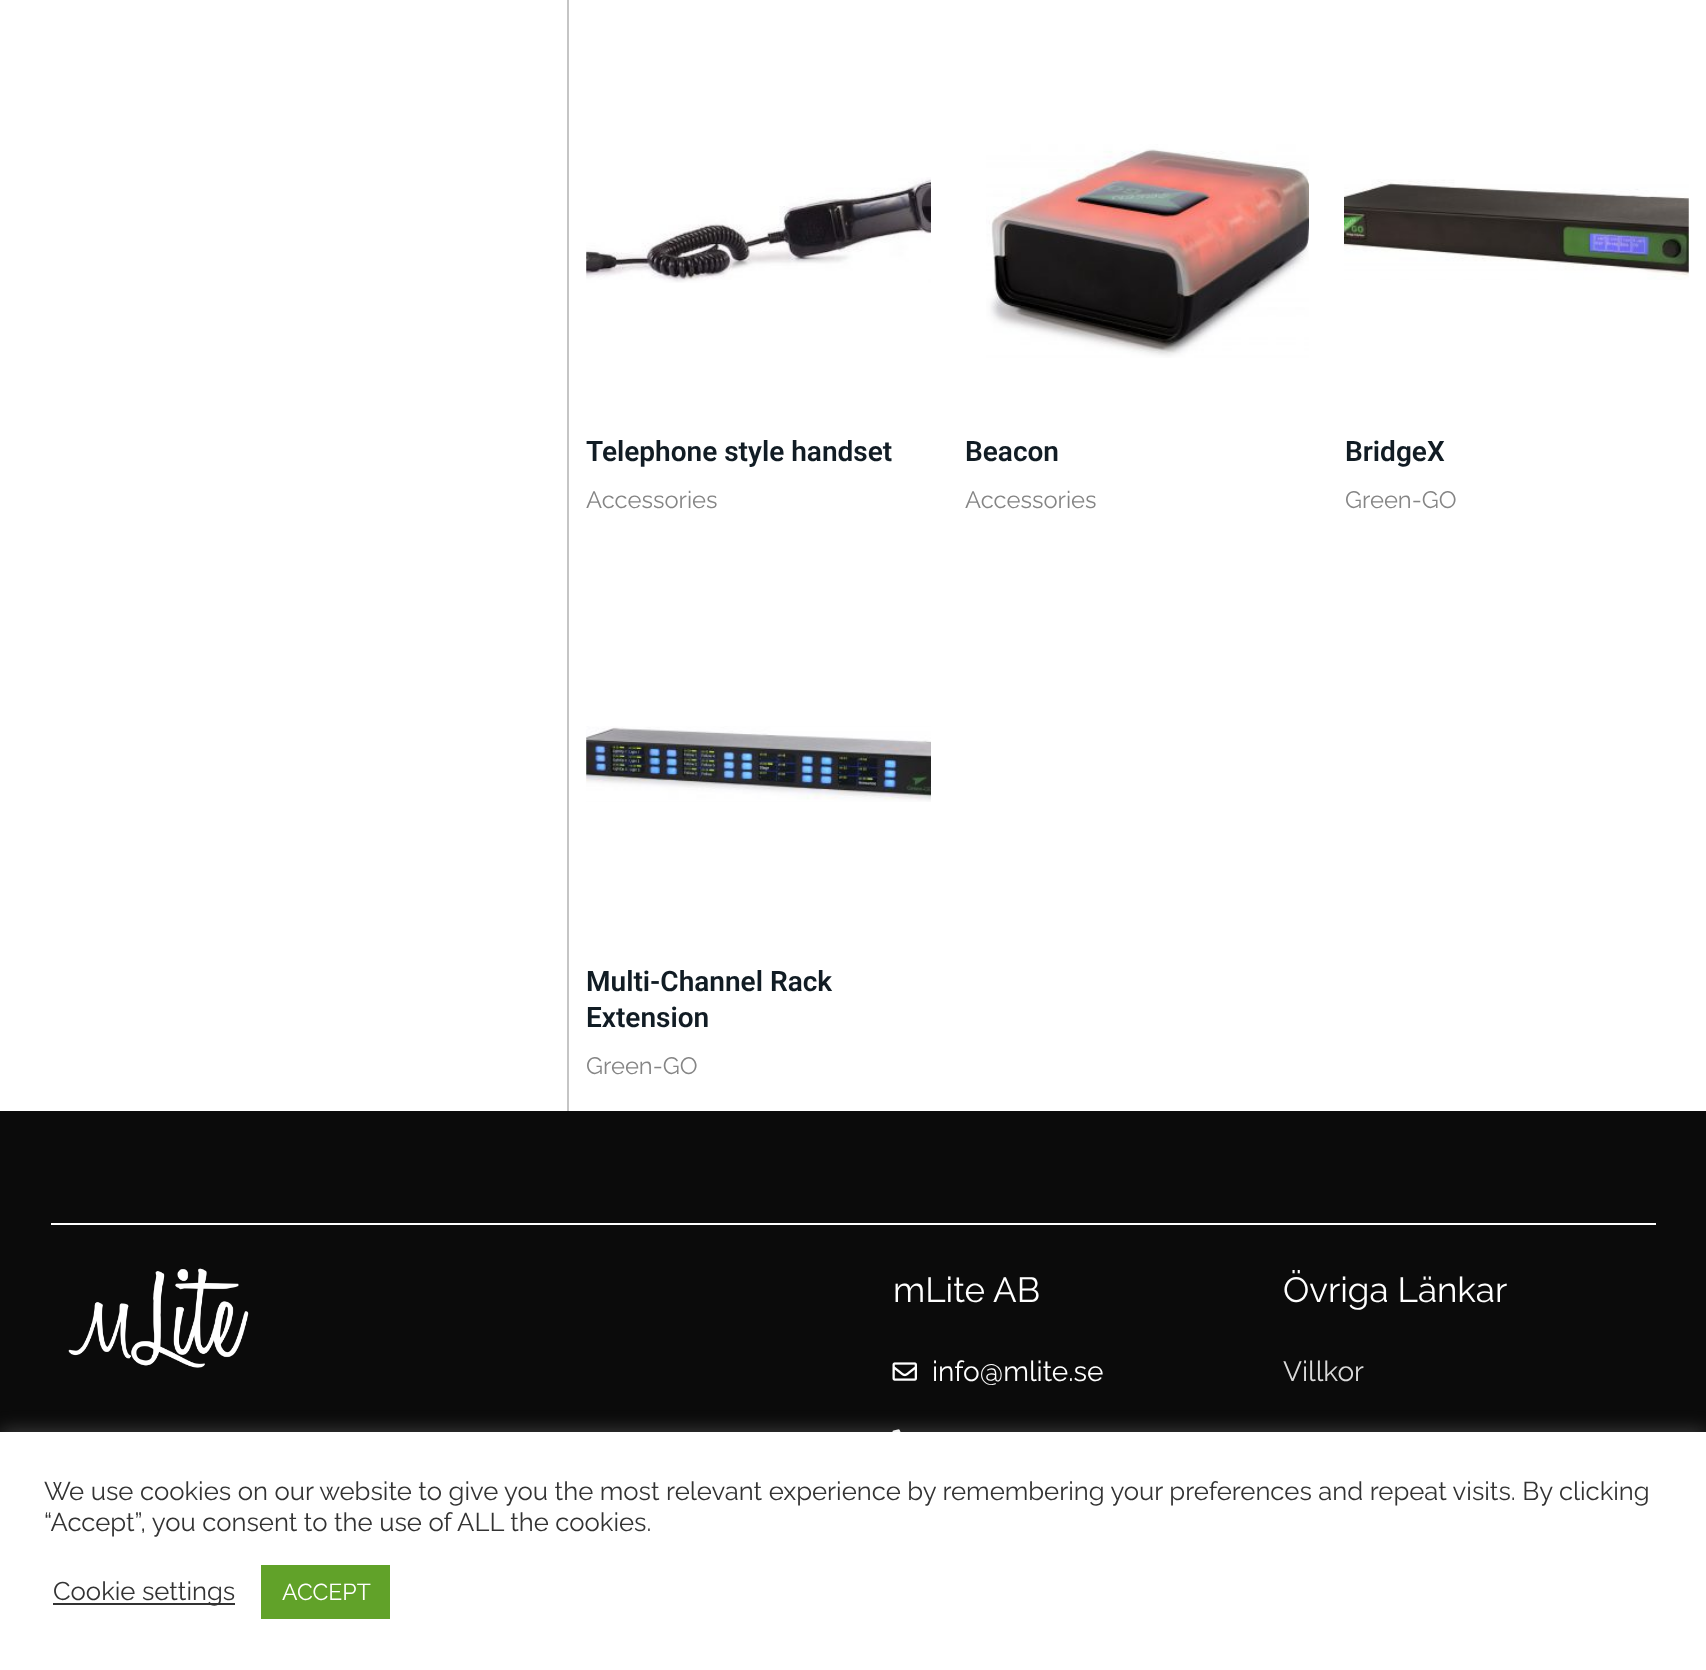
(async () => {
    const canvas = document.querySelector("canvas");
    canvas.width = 1706;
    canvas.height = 1670;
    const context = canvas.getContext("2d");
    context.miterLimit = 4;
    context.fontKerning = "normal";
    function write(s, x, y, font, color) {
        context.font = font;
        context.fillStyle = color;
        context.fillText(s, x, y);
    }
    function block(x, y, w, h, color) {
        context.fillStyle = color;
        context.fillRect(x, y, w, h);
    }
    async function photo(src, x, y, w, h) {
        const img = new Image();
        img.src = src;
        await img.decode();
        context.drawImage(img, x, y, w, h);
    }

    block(0, 0, 1706, 1670, "rgb(255, 255, 255)");
    block(567, 0, 2, 1111, "rgb(197, 197, 197)");
    await photo("media/1.png", 586, 177, 345, 106);
    write("Telephone style handset", 586, 461, "600 28px Roboto", "rgb(17, 28, 36)");
    write("Accessories", 586, 508, "23.75px Raleway", "rgb(133, 133, 133)");
    await photo("media/2.png", 986, 144, 323, 214);
    write("Beacon", 965, 461, "600 28px Roboto", "rgb(17, 28, 36)");
    write("Accessories", 965, 508, "23.75px Raleway", "rgb(133, 133, 133)");
    await photo("media/3.png", 1344, 179, 345, 101);
    write("BridgeX", 1345, 461, "600 28px Roboto", "rgb(17, 28, 36)");
    write("Green-GO", 1345, 508, "23.75px Raleway", "rgb(133, 133, 133)");
    await photo("media/4.png", 586, 726, 345, 76);
    write("Multi-Channel Rack", 586, 991, "600 28px Roboto", "rgb(17, 28, 36)");
    write("Extension", 586, 1027, "600 28px Roboto", "rgb(17, 28, 36)");
    write("Green-GO", 586, 1074, "23.75px Raleway", "rgb(133, 133, 133)");
    block(0, 1111, 1706, 321, "rgb(11, 11, 11)");
    block(51, 1223, 1605, 2, "rgb(255, 255, 255)");
    await photo("media/5.png", 68, 1268, 181, 100);
    write("mLite AB", 893, 1302, "35px Raleway", "rgb(255, 255, 255)");
    await photo("media/6.png", 892, 1362, 25, 19);
    write("info@mlite.se", 932, 1381, "28px Raleway", "rgb(255, 255, 255)");
    await photo("media/7.png", 892, 1429, 9, 3);
    write("Övriga Länkar", 1283, 1302, "35px Raleway", "rgb(255, 255, 255)");
    write("Villkor", 1283, 1381, "28px Raleway", "rgb(218, 218, 218)");
    context.fillStyle = "rgba(172, 171, 171, 0.3)";
    context.filter = "blur(9px)";
    context.beginPath();
    context.rect(0, 1430, 1706, 240);
    context.fill();
    context.filter = "none";
    block(0, 1432, 1706, 238, "rgb(255, 255, 255)");
    write("We use cookies on our website to give you the most relevant experience by remembering your preferences and repeat visits. By clicking", 44, 1500, "25.67px Raleway", "rgb(51, 51, 51)");
    write("“Accept”, you consent to the use of ALL the cookies.", 44, 1531, "25.67px Raleway", "rgb(51, 51, 51)");
    block(53, 1603, 182, 2, "rgb(51, 51, 51)");
    write("Cookie settings", 53, 1600, "25.67px Raleway", "rgb(51, 51, 51)");
    block(261, 1565, 129, 54, "rgb(97, 162, 41)");
    write("ACCEPT", 282, 1600, "23px Raleway", "rgb(255, 255, 255)");
})();
